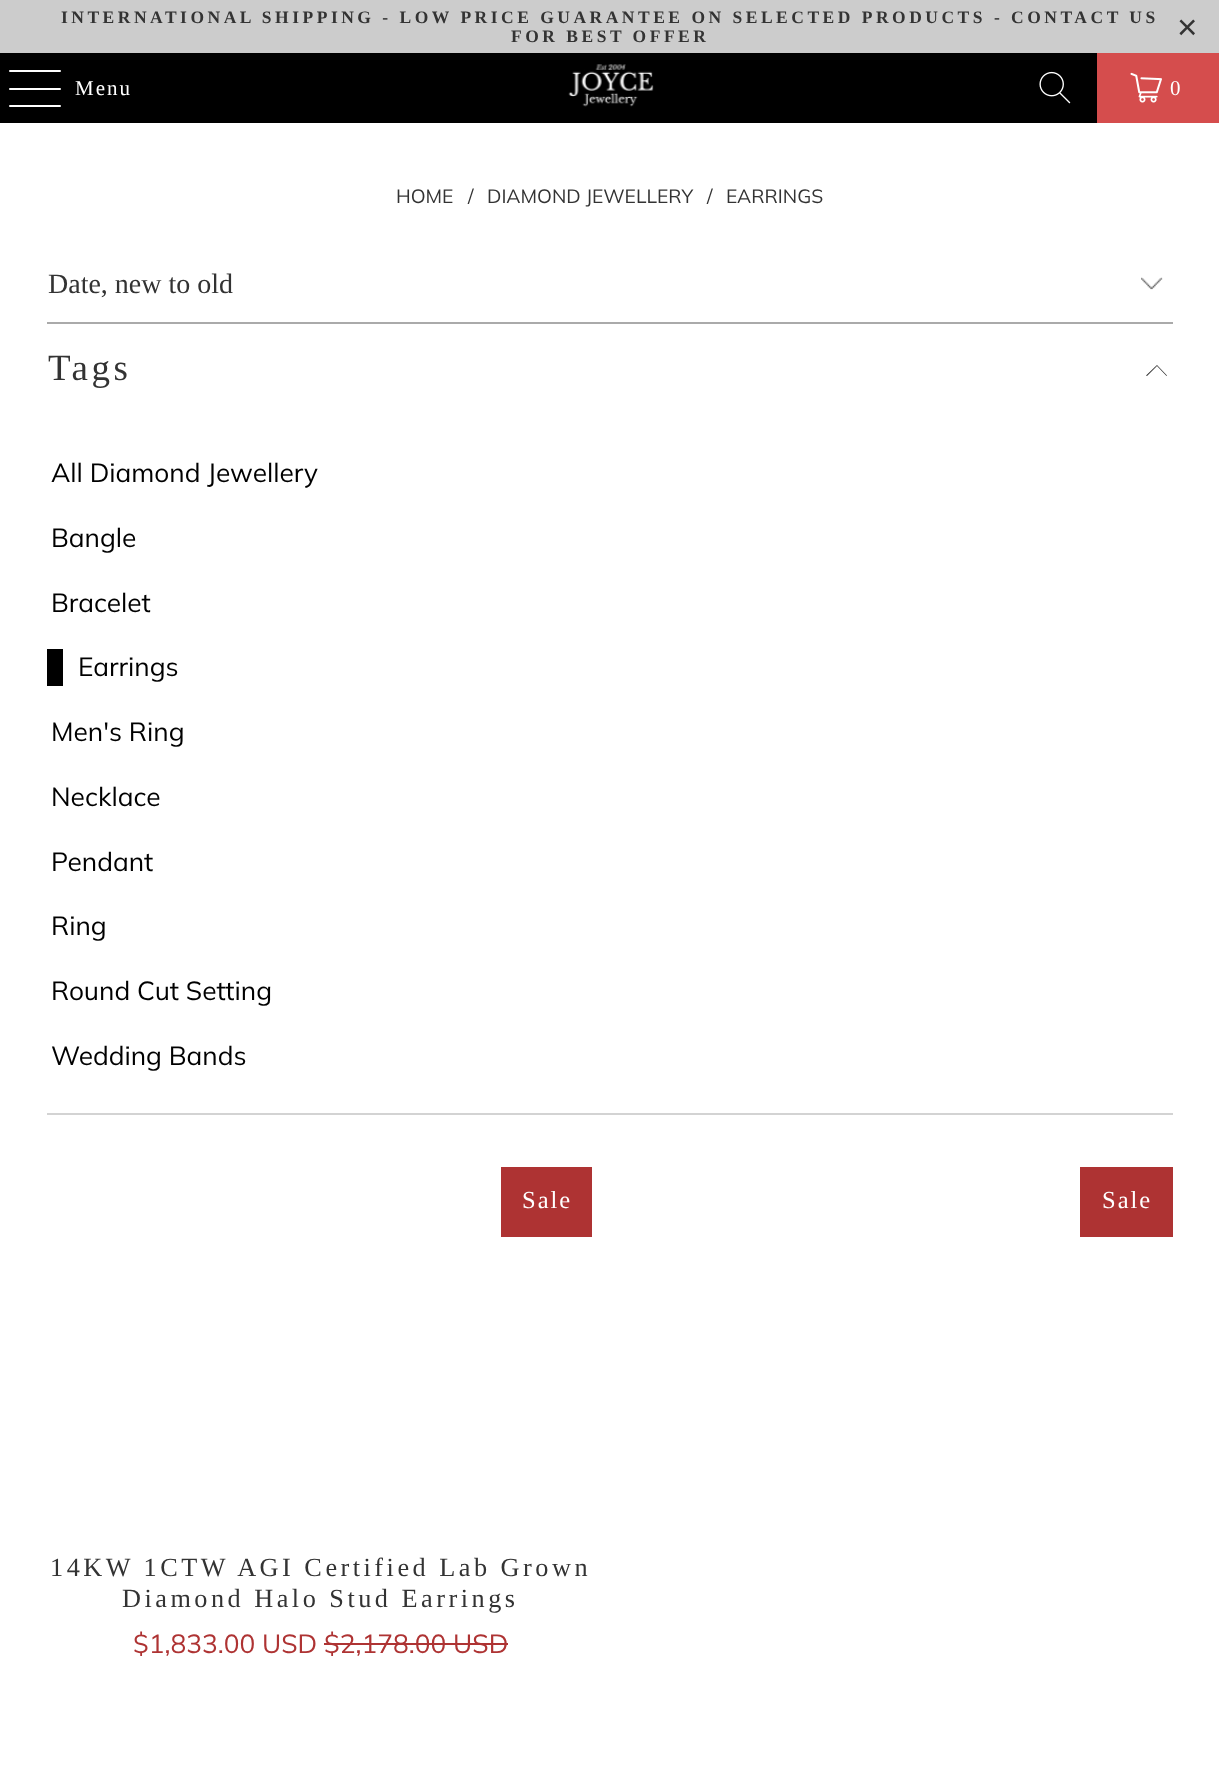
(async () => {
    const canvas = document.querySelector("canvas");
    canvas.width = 1219;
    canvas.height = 1773;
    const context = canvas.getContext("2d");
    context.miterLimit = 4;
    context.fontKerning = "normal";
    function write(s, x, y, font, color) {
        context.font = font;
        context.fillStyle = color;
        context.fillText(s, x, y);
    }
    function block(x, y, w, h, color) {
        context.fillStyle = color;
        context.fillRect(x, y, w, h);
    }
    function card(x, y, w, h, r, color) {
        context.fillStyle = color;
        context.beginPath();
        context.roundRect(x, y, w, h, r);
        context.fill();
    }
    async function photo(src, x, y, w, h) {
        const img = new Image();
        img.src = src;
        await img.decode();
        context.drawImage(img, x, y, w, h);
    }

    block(0, 0, 1219, 1773, "rgb(255, 255, 255)");
    block(0, 0, 1219, 53, "rgb(204, 204, 204)");
    context.letterSpacing = "3.5px";
    write("INTERNATIONAL SHIPPING - LOW PRICE GUARANTEE ON SELECTED PRODUCTS - CONTACT US", 61, 23, "bold 17.5px Liberation Serif", "rgb(51, 51, 51)");
    write("FOR BEST OFFER", 511, 42, "bold 17.5px Liberation Serif", "rgb(51, 51, 51)");
    write("×", 1177, 39, "35px Liberation Sans", "rgb(51, 51, 51)");
    block(0, 53, 1097, 70, "rgb(0, 0, 0)");
    card(9, 70, 52, 2, 1, "rgb(255, 255, 255)");
    card(9, 88, 52, 2, 1, "rgb(255, 255, 255)");
    card(9, 105, 52, 2, 1, "rgb(255, 255, 255)");
    context.letterSpacing = "2px";
    write("Menu", 75, 95, "21px Liberation Serif", "rgb(255, 255, 255)");
    await photo("media/1.png", 568, 64, 86, 43);
    await photo("media/2.png", 1039, 71, 32, 33);
    block(1097, 53, 122, 70, "rgb(213, 77, 77)");
    await photo("media/3.png", 1130, 72, 32, 31);
    write("0", 1170, 95, "21px Liberation Serif", "rgb(255, 255, 255)");
    context.letterSpacing = "0px";
    write("HOME", 396, 203, "19.25px Muli", "rgb(51, 51, 51)");
    write("/", 468, 203, "19.25px Muli", "rgb(51, 51, 51)");
    write("DIAMOND JEWELLERY", 487, 203, "19.25px Muli", "rgb(51, 51, 51)");
    write("/", 707, 203, "19.25px Muli", "rgb(51, 51, 51)");
    write("EARRINGS", 726, 203, "19.25px Muli", "rgb(51, 51, 51)");
    await photo("media/4.png", 1141, 277, 22, 13);
    write("Date, new to old", 48, 293, "28px Liberation Serif", "rgb(51, 51, 51)");
    block(47, 322, 1126, 2, "rgb(170, 170, 170)");
    context.letterSpacing = "3.5px";
    write("Tags", 48, 380, "37px Liberation Serif", "rgb(51, 51, 51)");
    context.beginPath();
    context.moveTo(1157, 365);
    context.lineTo(1146, 375.5);
    context.lineTo(1147, 376);
    context.lineTo(1157, 366);
    context.lineTo(1166.5, 376);
    context.lineTo(1167, 375.5);
    context.closePath();
    context.fill();
    context.letterSpacing = "0px";
    write("All Diamond Jewellery", 51, 482, "26.25px Muli", "rgb(0, 0, 0)");
    write("Bangle", 51, 547, "26.25px Muli", "rgb(0, 0, 0)");
    write("Bracelet", 51, 612, "26.25px Muli", "rgb(0, 0, 0)");
    block(47, 649, 16, 37, "rgb(0, 0, 0)");
    write("Earrings", 78, 676, "26.25px Muli", "rgb(0, 0, 0)");
    write("Men's Ring", 51, 741, "26.25px Muli", "rgb(0, 0, 0)");
    write("Necklace", 51, 806, "26.25px Muli", "rgb(0, 0, 0)");
    write("Pendant", 51, 871, "26.25px Muli", "rgb(0, 0, 0)");
    write("Ring", 51, 935, "26.25px Muli", "rgb(0, 0, 0)");
    write("Round Cut Setting", 51, 1000, "26.25px Muli", "rgb(0, 0, 0)");
    write("Wedding Bands", 51, 1065, "26.25px Muli", "rgb(0, 0, 0)");
    block(47, 1113, 1126, 2, "rgb(211, 211, 211)");
    block(501, 1167, 91, 70, "rgb(174, 51, 51)");
    context.letterSpacing = "2px";
    write("Sale", 522, 1208, "24.5px Liberation Serif", "rgb(255, 255, 255)");
    context.letterSpacing = "3.5px";
    write("14KW 1CTW AGI Certified Lab Grown", 50, 1576, "26.25px Liberation Serif", "rgb(51, 51, 51)");
    write("Diamond Halo Stud Earrings", 122, 1607, "26.25px Liberation Serif", "rgb(51, 51, 51)");
    context.letterSpacing = "0px";
    write("$1,833.00 USD $2,178.00 USD", 133, 1653, "26.25px Muli", "rgb(174, 51, 51)");
    block(324, 1643, 184, 2, "rgb(174, 51, 51)");
    block(1080, 1167, 93, 70, "rgb(174, 51, 51)");
    context.letterSpacing = "2px";
    write("Sale", 1102, 1208, "24.5px Liberation Serif", "rgb(255, 255, 255)");
})();
